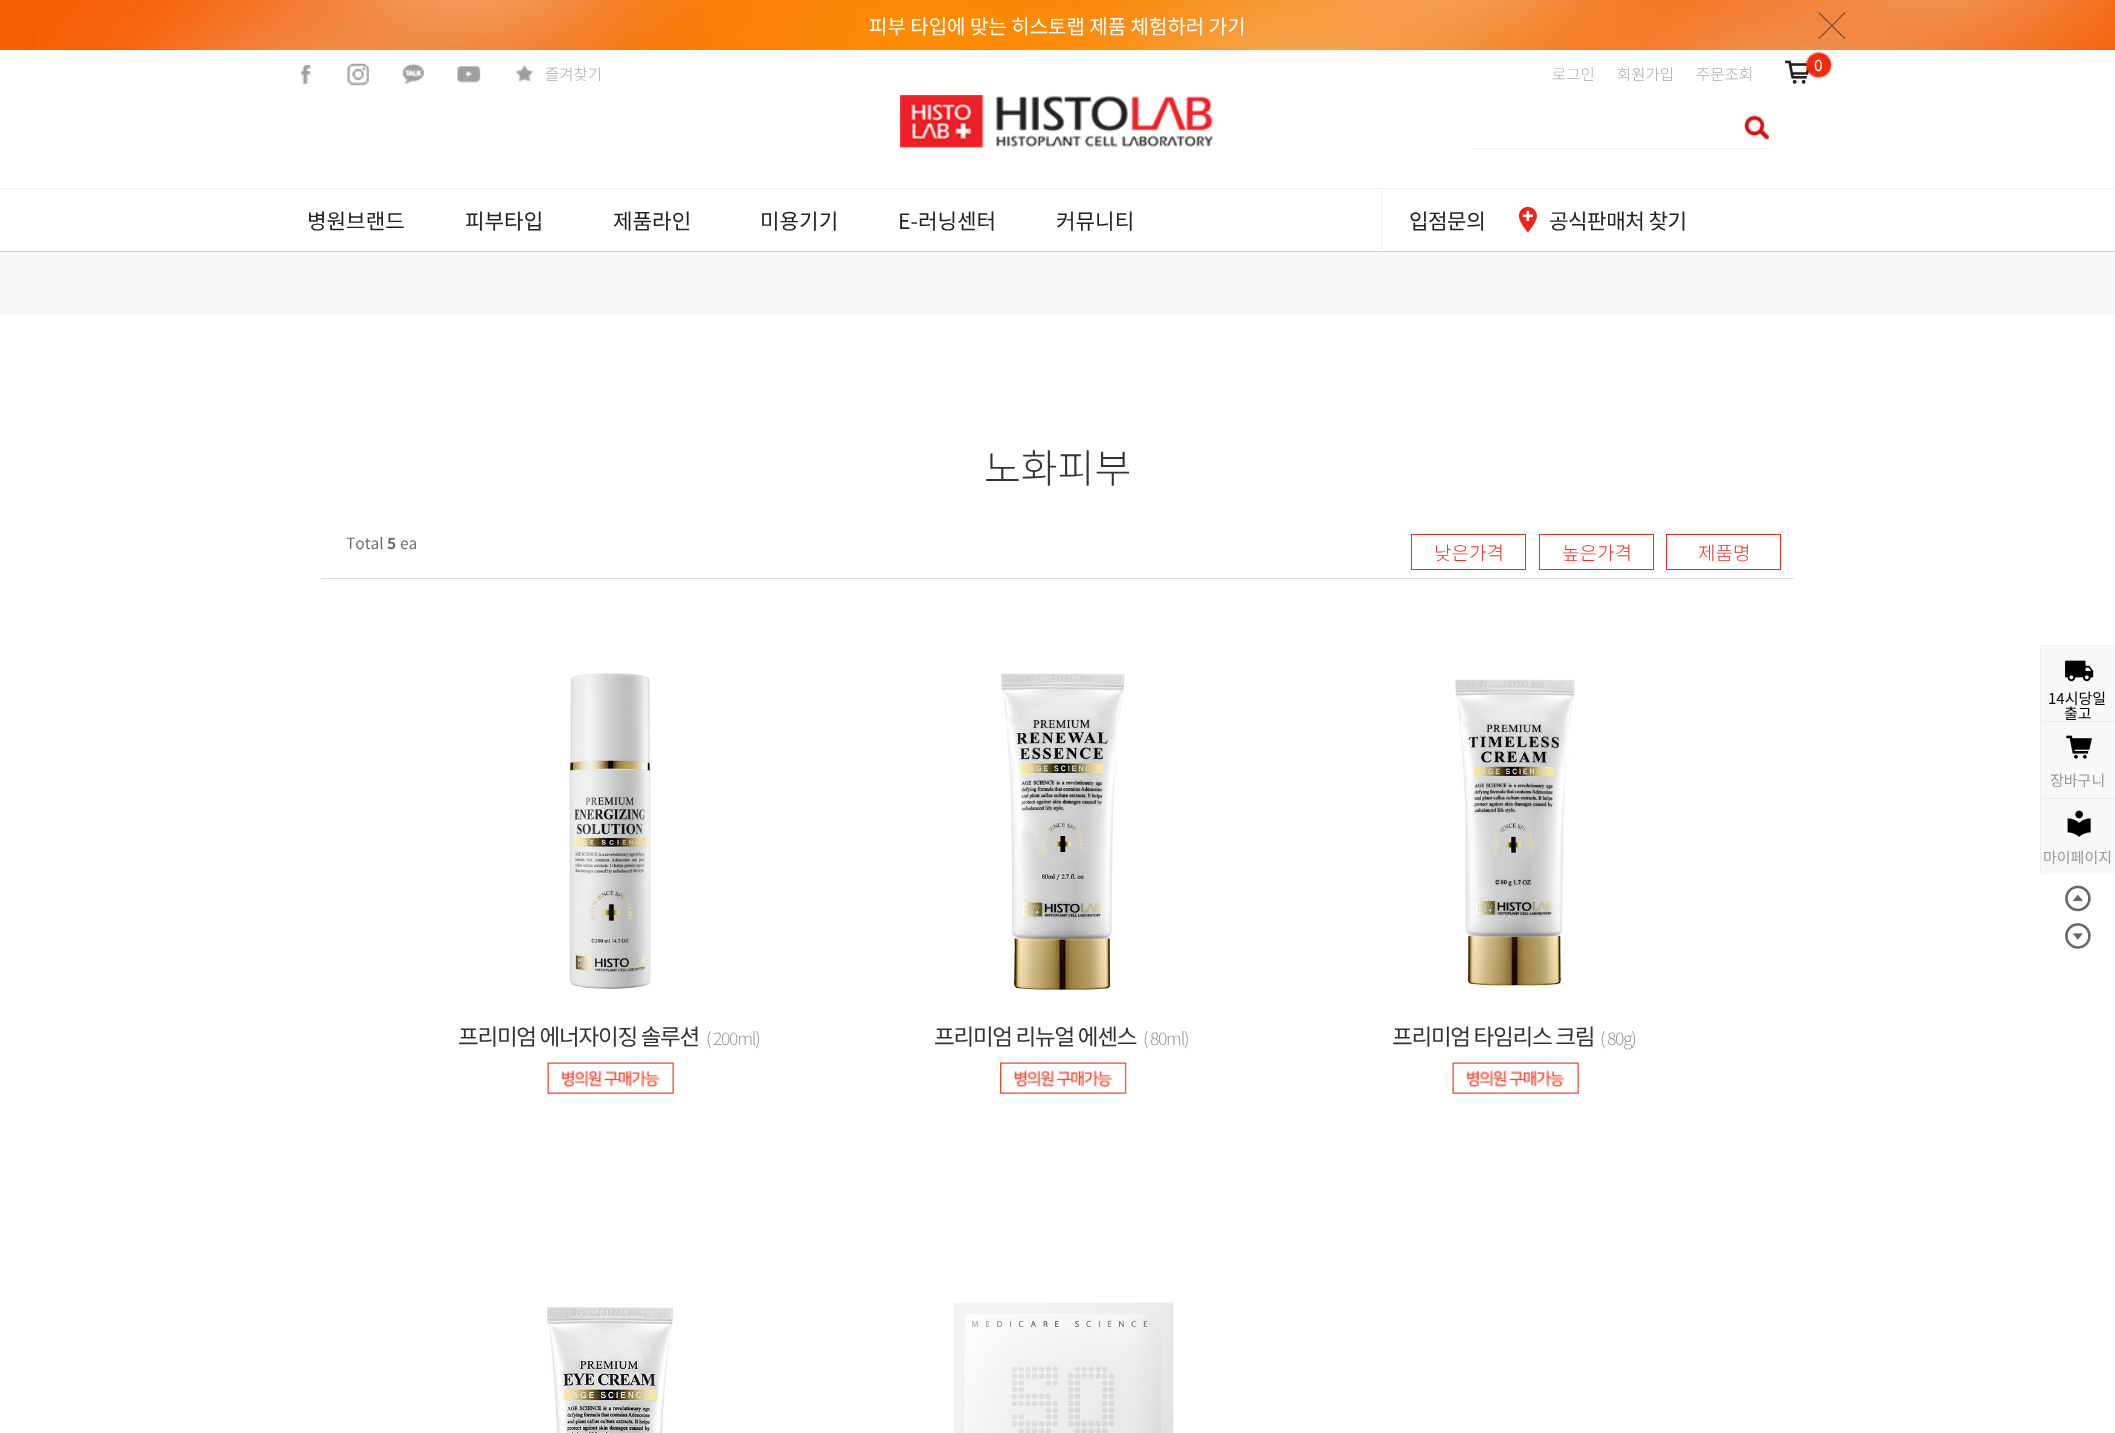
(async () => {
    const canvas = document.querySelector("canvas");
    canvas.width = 2115;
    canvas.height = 1433;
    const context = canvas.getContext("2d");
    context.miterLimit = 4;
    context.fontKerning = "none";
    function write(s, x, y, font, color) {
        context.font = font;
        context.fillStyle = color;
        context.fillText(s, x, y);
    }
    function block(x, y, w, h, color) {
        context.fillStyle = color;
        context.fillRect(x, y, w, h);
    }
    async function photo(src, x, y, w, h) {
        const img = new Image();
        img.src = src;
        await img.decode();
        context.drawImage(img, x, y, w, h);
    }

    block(0, 0, 2115, 1433, "rgb(255, 255, 255)");
    await photo("media/1.png", 0, 0, 2115, 50);
    write("피부 타입에 맞는 히스토랩 제품 체험하러 가기", 869, 34, "20px Noto Sans KR", "rgb(255, 255, 255)");
    await photo("media/2.png", 1818, 12, 28, 27);
    await photo("media/3.png", 301, 64, 10, 20);
    await photo("media/4.png", 347, 63, 22, 23);
    await photo("media/5.png", 402, 63, 22, 21);
    await photo("media/6.png", 457, 66, 24, 17);
    await photo("media/7.png", 516, 65, 17, 17);
    write("즐겨찾기", 545, 80, "300 15.5px Noto Sans KR", "rgb(170, 170, 170)");
    await photo("media/8.png", 1785, 60, 24, 24);
    await photo("media/9.png", 1806, 52, 26, 26);
    write("0", 1814, 71, "15.5px Noto Sans KR", "rgb(255, 255, 255)");
    write("로그인", 1552, 80, "300 15.5px Noto Sans KR", "rgb(170, 170, 170)");
    write("회원가입", 1617, 80, "300 15.5px Noto Sans KR", "rgb(170, 170, 170)");
    write("주문조회", 1696, 80, "300 15.5px Noto Sans KR", "rgb(170, 170, 170)");
    await photo("media/10.png", 900, 95, 313, 53);
    block(1473, 148, 297, 1, "rgb(238, 238, 238)");
    await photo("media/11.png", 1743, 115, 27, 25);
    block(0, 188, 2115, 1, "rgb(238, 238, 238)");
    block(0, 251, 2115, 1, "rgb(204, 204, 204)");
    write("병원브랜드", 307, 229, "21.25px Noto Sans KR", "rgb(34, 34, 34)");
    write("피부타입", 465, 229, "21.25px Noto Sans KR", "rgb(34, 34, 34)");
    write("제품라인", 613, 229, "21.25px Noto Sans KR", "rgb(34, 34, 34)");
    write("미용기기", 760, 229, "21.25px Noto Sans KR", "rgb(34, 34, 34)");
    write("E-러닝센터", 898, 229, "21.25px Noto Sans KR", "rgb(34, 34, 34)");
    write("커뮤니티", 1056, 229, "21.25px Noto Sans KR", "rgb(34, 34, 34)");
    block(1381, 189, 1, 62, "rgb(238, 238, 238)");
    context.letterSpacing = "-0.5px";
    write("입점문의", 1409, 229, "21.25px Noto Sans KR", "rgb(34, 34, 34)");
    await photo("media/12.png", 1518, 206, 19, 27);
    write("공식판매처 찾기", 1549, 229, "21.25px Noto Sans KR", "rgb(34, 34, 34)");
    block(0, 253, 2115, 62, "rgb(247, 247, 247)");
    context.letterSpacing = "0px";
    write("노화피부", 984, 483, "300 40px Noto Sans KR", "rgb(51, 51, 51)");
    block(321, 578, 1473, 1, "rgb(221, 221, 221)");
    write("Total", 346, 549, "15.5px Noto Sans KR", "rgb(110, 110, 110)");
    write("5", 387, 549, "bold 15.5px Noto Sans KR", "rgb(110, 110, 110)");
    write("ea", 400, 549, "15.5px Noto Sans KR", "rgb(110, 110, 110)");
    context.strokeStyle = "rgb(242, 43, 30)";
    context.strokeRect(1411.5, 534.5, 114, 35);
    write("낮은가격", 1434, 560, "300 19px Noto Sans KR", "rgb(242, 43, 30)");
    context.strokeRect(1539.5, 534.5, 114, 35);
    write("높은가격", 1562, 560, "300 19px Noto Sans KR", "rgb(242, 43, 30)");
    context.strokeRect(1666.5, 534.5, 114, 35);
    write("제품명", 1698, 560, "300 19px Noto Sans KR", "rgb(242, 43, 30)");
    await photo("media/13.png", 569, 673, 82, 316);
    context.letterSpacing = "-1.25px";
    write("프리미엄 에너자이징 솔루션", 458, 1045, "22.5px Noto Sans KR", "rgb(51, 51, 51)");
    write("( 200ml)", 706, 1045, "300 17.5px Noto Sans KR", "rgb(153, 153, 153)");
    await photo("media/14.png", 547, 1062, 127, 32);
    await photo("media/15.png", 1001, 673, 124, 317);
    write("프리미엄 리뉴얼 에센스", 934, 1045, "22.5px Noto Sans KR", "rgb(51, 51, 51)");
    write("( 80ml)", 1143, 1045, "300 17.5px Noto Sans KR", "rgb(153, 153, 153)");
    await photo("media/16.png", 1000, 1062, 127, 32);
    await photo("media/17.png", 1455, 679, 120, 309);
    write("프리미엄 타임리스 크림", 1392, 1045, "22.5px Noto Sans KR", "rgb(51, 51, 51)");
    write("( 80g)", 1600, 1045, "300 17.5px Noto Sans KR", "rgb(153, 153, 153)");
    await photo("media/14.png", 1452, 1062, 127, 32);
    await photo("media/18.png", 547, 1307, 126, 126);
    await photo("media/19.png", 953, 1302, 220, 131);
    block(2041, 646, 74, 75, "rgb(248, 248, 248)");
    block(2040, 645, 75, 1, "rgb(238, 238, 238)");
    block(2040, 645, 1, 76, "rgb(238, 238, 238)");
    await photo("media/20.png", 2065, 660, 29, 22);
    context.letterSpacing = "0px";
    write("14시당일", 2048, 704, "15px Noto Sans KR", "rgb(0, 0, 0)");
    write("출고", 2064, 719, "15px Noto Sans KR", "rgb(0, 0, 0)");
    block(2041, 722, 74, 76, "rgb(248, 248, 248)");
    block(2040, 721, 75, 1, "rgb(238, 238, 238)");
    block(2040, 721, 1, 77, "rgb(238, 238, 238)");
    await photo("media/21.png", 2066, 735, 26, 24);
    write("장바구니", 2050, 786, "15px Noto Sans KR", "rgb(153, 153, 153)");
    block(2041, 799, 74, 75, "rgb(248, 248, 248)");
    block(2040, 798, 75, 1, "rgb(238, 238, 238)");
    block(2040, 798, 1, 76, "rgb(238, 238, 238)");
    await photo("media/22.png", 2067, 810, 24, 27);
    write("마이페이지", 2043, 863, "15px Noto Sans KR", "rgb(153, 153, 153)");
    await photo("media/23.png", 2065, 885, 26, 27);
    await photo("media/24.png", 2065, 923, 26, 26);
})();
